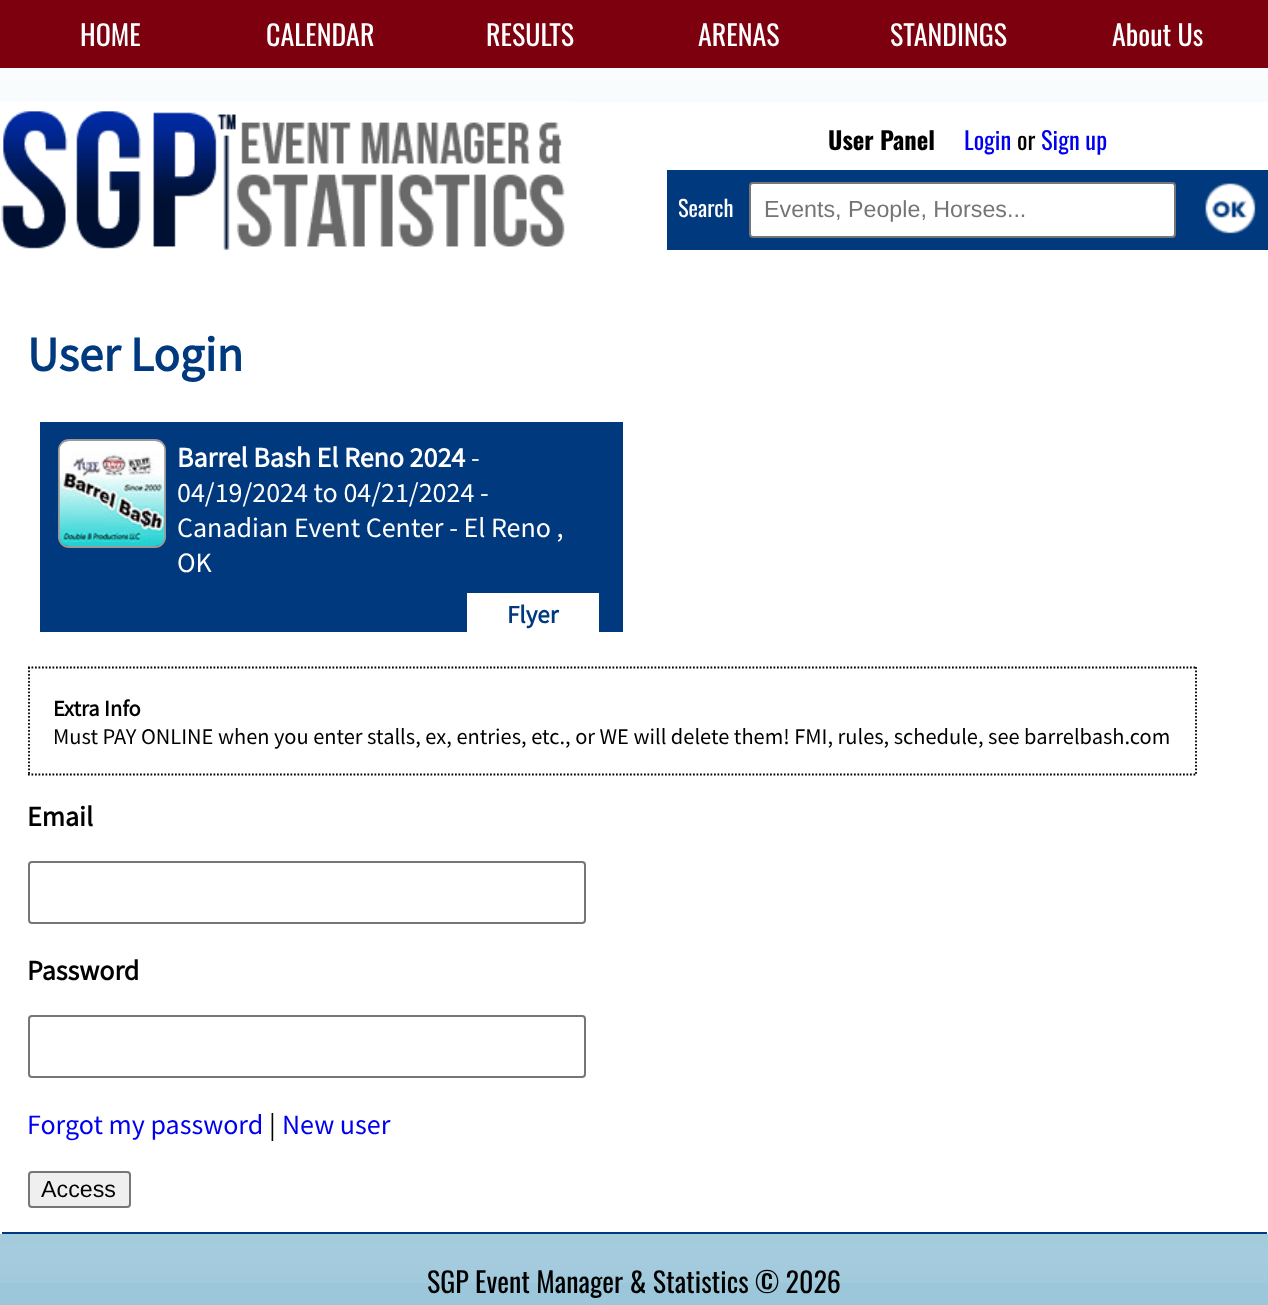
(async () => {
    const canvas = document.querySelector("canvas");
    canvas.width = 1268;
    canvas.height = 1305;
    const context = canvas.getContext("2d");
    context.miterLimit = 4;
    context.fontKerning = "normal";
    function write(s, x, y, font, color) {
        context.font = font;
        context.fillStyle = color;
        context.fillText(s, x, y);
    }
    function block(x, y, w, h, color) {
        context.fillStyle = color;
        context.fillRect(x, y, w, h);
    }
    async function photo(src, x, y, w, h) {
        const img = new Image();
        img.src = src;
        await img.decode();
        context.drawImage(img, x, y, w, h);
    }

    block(0, 0, 1268, 1305, "rgb(156, 199, 218)");
    await photo("media/1.png", 0, 68, 1268, 1215);
    block(0, 0, 1268, 68, "rgb(125, 0, 14)");
    write("HOME", 80, 46, "28px Oswald", "rgb(255, 255, 255)");
    write("CALENDAR", 266, 46, "28px Oswald", "rgb(255, 255, 255)");
    write("RESULTS", 486, 46, "28px Oswald", "rgb(255, 255, 255)");
    write("ARENAS", 698, 46, "28px Oswald", "rgb(255, 255, 255)");
    write("STANDINGS", 890, 46, "28px Oswald", "rgb(255, 255, 255)");
    write("About Us", 1112, 46, "28px Oswald", "rgb(255, 255, 255)");
    block(0, 102, 1268, 1132, "rgb(255, 255, 255)");
    await photo("media/2.png", 0, 101, 572, 149);
    write("User Panel", 828, 150, "bold 24.5px Oswald", "rgb(0, 0, 0)");
    write("Login", 964, 150, "24.5px Oswald", "rgb(0, 0, 238)");
    write("or", 1017, 150, "24.5px Oswald", "rgb(0, 0, 0)");
    write("Sign up", 1041, 150, "24.5px Oswald", "rgb(0, 0, 238)");
    block(667, 170, 601, 80, "rgb(0, 57, 125)");
    write("Search", 678, 217, "22.4px Oswald", "rgb(255, 255, 255)");
    context.beginPath();
    context.roundRect(750, 183, 425, 54, 3);
    context.fill();
    context.strokeStyle = "rgb(118, 118, 118)";
    context.lineWidth = 2;
    context.stroke();
    write("Events, People, Horses...", 764, 217, "23.25px Liberation Sans", "rgb(117, 117, 117)");
    await photo("media/3.png", 1205, 183, 51, 51);
    block(2, 1232, 1265, 2, "rgb(0, 57, 125)");
    write("User Login", 27, 371, "bold 49px Source Sans Pro", "rgb(0, 57, 125)");
    block(40, 422, 583, 210, "rgb(0, 57, 125)");
    context.beginPath();
    context.roundRect(59, 440, 106, 107, 10);
    context.strokeStyle = "rgb(153, 153, 153)";
    context.stroke();
    await photo("media/4.png", 59, 441, 106, 105);
    write("Barrel Bash El Reno 2024", 177, 467, "bold 28px Source Sans Pro", "rgb(255, 255, 255)");
    write("-", 471, 467, "28px Source Sans Pro", "rgb(255, 255, 255)");
    write("04/19/2024 to 04/21/2024 -", 177, 502, "28px Source Sans Pro", "rgb(255, 255, 255)");
    write("Canadian Event Center - El Reno ,", 177, 537, "28px Source Sans Pro", "rgb(255, 255, 255)");
    write("OK", 177, 572, "28px Source Sans Pro", "rgb(255, 255, 255)");
    block(467, 593, 132, 39, "rgb(255, 255, 255)");
    write("Flyer", 507, 623, "bold 25px Source Sans Pro", "rgb(0, 57, 125)");
    context.beginPath();
    context.moveTo(28, 667.5);
    context.lineTo(1197, 667.5);
    context.strokeStyle = "rgb(0, 0, 0)";
    context.lineWidth = 1.8;
    context.setLineDash([1.75, 1.75]);
    context.stroke();
    context.beginPath();
    context.moveTo(1196, 667);
    context.lineTo(1196, 775);
    context.stroke();
    context.beginPath();
    context.moveTo(28, 774.5);
    context.lineTo(1197, 774.5);
    context.stroke();
    context.beginPath();
    context.moveTo(29, 667);
    context.lineTo(29, 775);
    context.stroke();
    write("Extra Info", 53, 716, "bold 22.4px Source Sans Pro", "rgb(0, 0, 0)");
    write("Must PAY ONLINE when you enter stalls, ex, entries, etc., or WE will delete them! FMI, rules, schedule, see barrelbash.com", 53, 744, "22.4px Source Sans Pro", "rgb(0, 0, 0)");
    write("Email", 27, 826, "bold 28px Source Sans Pro", "rgb(0, 0, 0)");
    context.beginPath();
    context.roundRect(29, 862, 556, 61, 3);
    context.strokeStyle = "rgb(118, 118, 118)";
    context.lineWidth = 2;
    context.setLineDash([]);
    context.stroke();
    write("Password", 27, 980, "bold 28px Source Sans Pro", "rgb(0, 0, 0)");
    context.beginPath();
    context.roundRect(29, 1016, 556, 61, 3);
    context.stroke();
    write("Forgot my password", 27, 1134, "28px Source Sans Pro", "rgb(0, 0, 238)");
    write("|", 269, 1134, "28px Source Sans Pro", "rgb(0, 0, 0)");
    write("New user", 282, 1134, "28px Source Sans Pro", "rgb(0, 0, 238)");
    context.fillStyle = "rgb(239, 239, 239)";
    context.beginPath();
    context.roundRect(29, 1172, 101, 35, 3);
    context.fill();
    context.stroke();
    write("Access", 41, 1197, "23.25px Liberation Sans", "rgb(0, 0, 0)");
    write("SGP Event Manager & Statistics © 2026", 427, 1293, "28px Oswald", "rgb(0, 0, 0)");
})();
